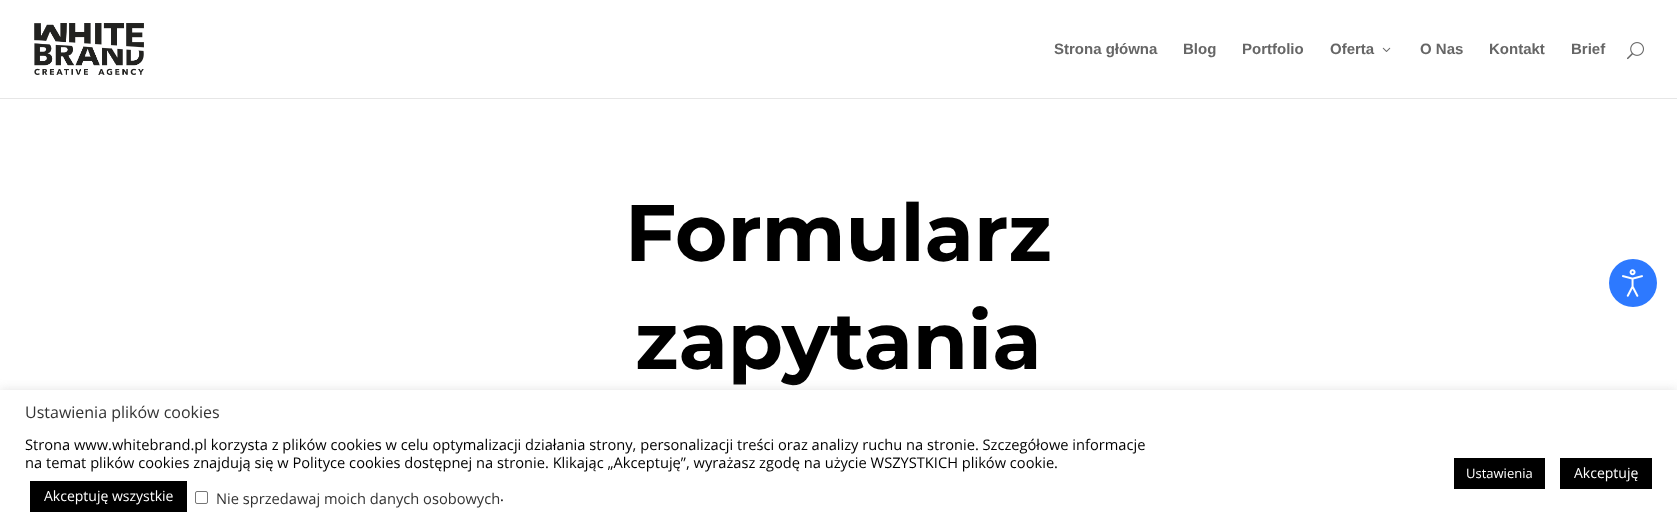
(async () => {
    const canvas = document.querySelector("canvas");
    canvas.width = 1677;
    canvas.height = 526;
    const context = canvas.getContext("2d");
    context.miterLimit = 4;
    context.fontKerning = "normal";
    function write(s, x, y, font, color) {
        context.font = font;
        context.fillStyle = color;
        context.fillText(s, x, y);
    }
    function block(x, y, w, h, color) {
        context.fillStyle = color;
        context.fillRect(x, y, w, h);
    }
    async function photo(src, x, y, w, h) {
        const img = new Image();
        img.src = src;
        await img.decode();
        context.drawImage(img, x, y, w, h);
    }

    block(0, 0, 1677, 526, "rgb(255, 255, 255)");
    block(0, 98, 1677, 1, "rgb(230, 230, 230)");
    await photo("media/1.png", 34, 23, 110, 52);
    write("Strona główna", 1054, 54, "bold 15px Liberation Sans", "rgb(102, 102, 102)");
    write("Blog", 1183, 54, "bold 15px Liberation Sans", "rgb(102, 102, 102)");
    write("Portfolio", 1242, 54, "bold 15px Liberation Sans", "rgb(102, 102, 102)");
    write("Oferta", 1330, 54, "bold 15px Liberation Sans", "rgb(102, 102, 102)");
    await photo("media/2.png", 1382, 47, 9, 5);
    write("O Nas", 1420, 54, "bold 15px Liberation Sans", "rgb(102, 102, 102)");
    write("Kontakt", 1489, 54, "bold 15px Liberation Sans", "rgb(102, 102, 102)");
    write("Brief", 1571, 54, "bold 15px Liberation Sans", "rgb(102, 102, 102)");
    await photo("media/3.png", 1627, 42, 17, 18);
    write("Formularz", 625, 261, "bold 80px Montserrat", "rgb(0, 0, 0)");
    write("zapytania", 635, 369, "bold 80px Montserrat", "rgb(0, 0, 0)");
    context.fillStyle = "rgb(45, 121, 255)";
    context.beginPath();
    context.arc(1633, 283, 24, 0, Math.PI * 2);
    context.fill();
    await photo("media/4.png", 1622, 269, 21, 28);
    context.fillStyle = "rgba(172, 171, 171, 0.3)";
    context.filter = "blur(5px)";
    context.beginPath();
    context.rect(0, 389, 1677, 136);
    context.fill();
    context.filter = "none";
    block(0, 390, 1677, 136, "rgb(255, 255, 255)");
    write("Ustawienia plików cookies", 25, 418, "16px Open Sans", "rgb(51, 51, 51)");
    write("Strona www.whitebrand.pl korzysta z plików cookies w celu optymalizacji działania strony, personalizacji treści oraz analizy ruchu na stronie. Szczegółowe informacje", 25, 450, "14.67px Open Sans", "rgb(0, 0, 0)");
    write("na temat plików cookies znajdują się w Polityce cookies dostępnej na stronie. Klikając „Akceptuję”, wyrażasz zgodę na użycie WSZYSTKICH plików cookie.", 25, 468, "14.67px Open Sans", "rgb(0, 0, 0)");
    block(30, 481, 157, 31, "rgb(0, 0, 0)");
    write("Akceptuję wszystkie", 44, 501, "14px Open Sans", "rgb(255, 255, 255)");
    context.beginPath();
    context.roundRect(195.5, 491.5, 12, 12, 1.5);
    context.strokeStyle = "rgb(118, 118, 118)";
    context.stroke();
    write("Nie sprzedawaj moich danych osobowych", 216, 504, "14.67px Open Sans", "rgb(51, 51, 51)");
    write(".", 500, 501, "14.67px Open Sans", "rgb(0, 0, 0)");
    block(1454, 458, 91, 31, "rgb(0, 0, 0)");
    write("Ustawienia", 1466, 478, "13px Open Sans", "rgb(255, 255, 255)");
    block(1560, 458, 92, 31, "rgb(0, 0, 0)");
    write("Akceptuję", 1574, 478, "14px Open Sans", "rgb(255, 255, 255)");
})();
